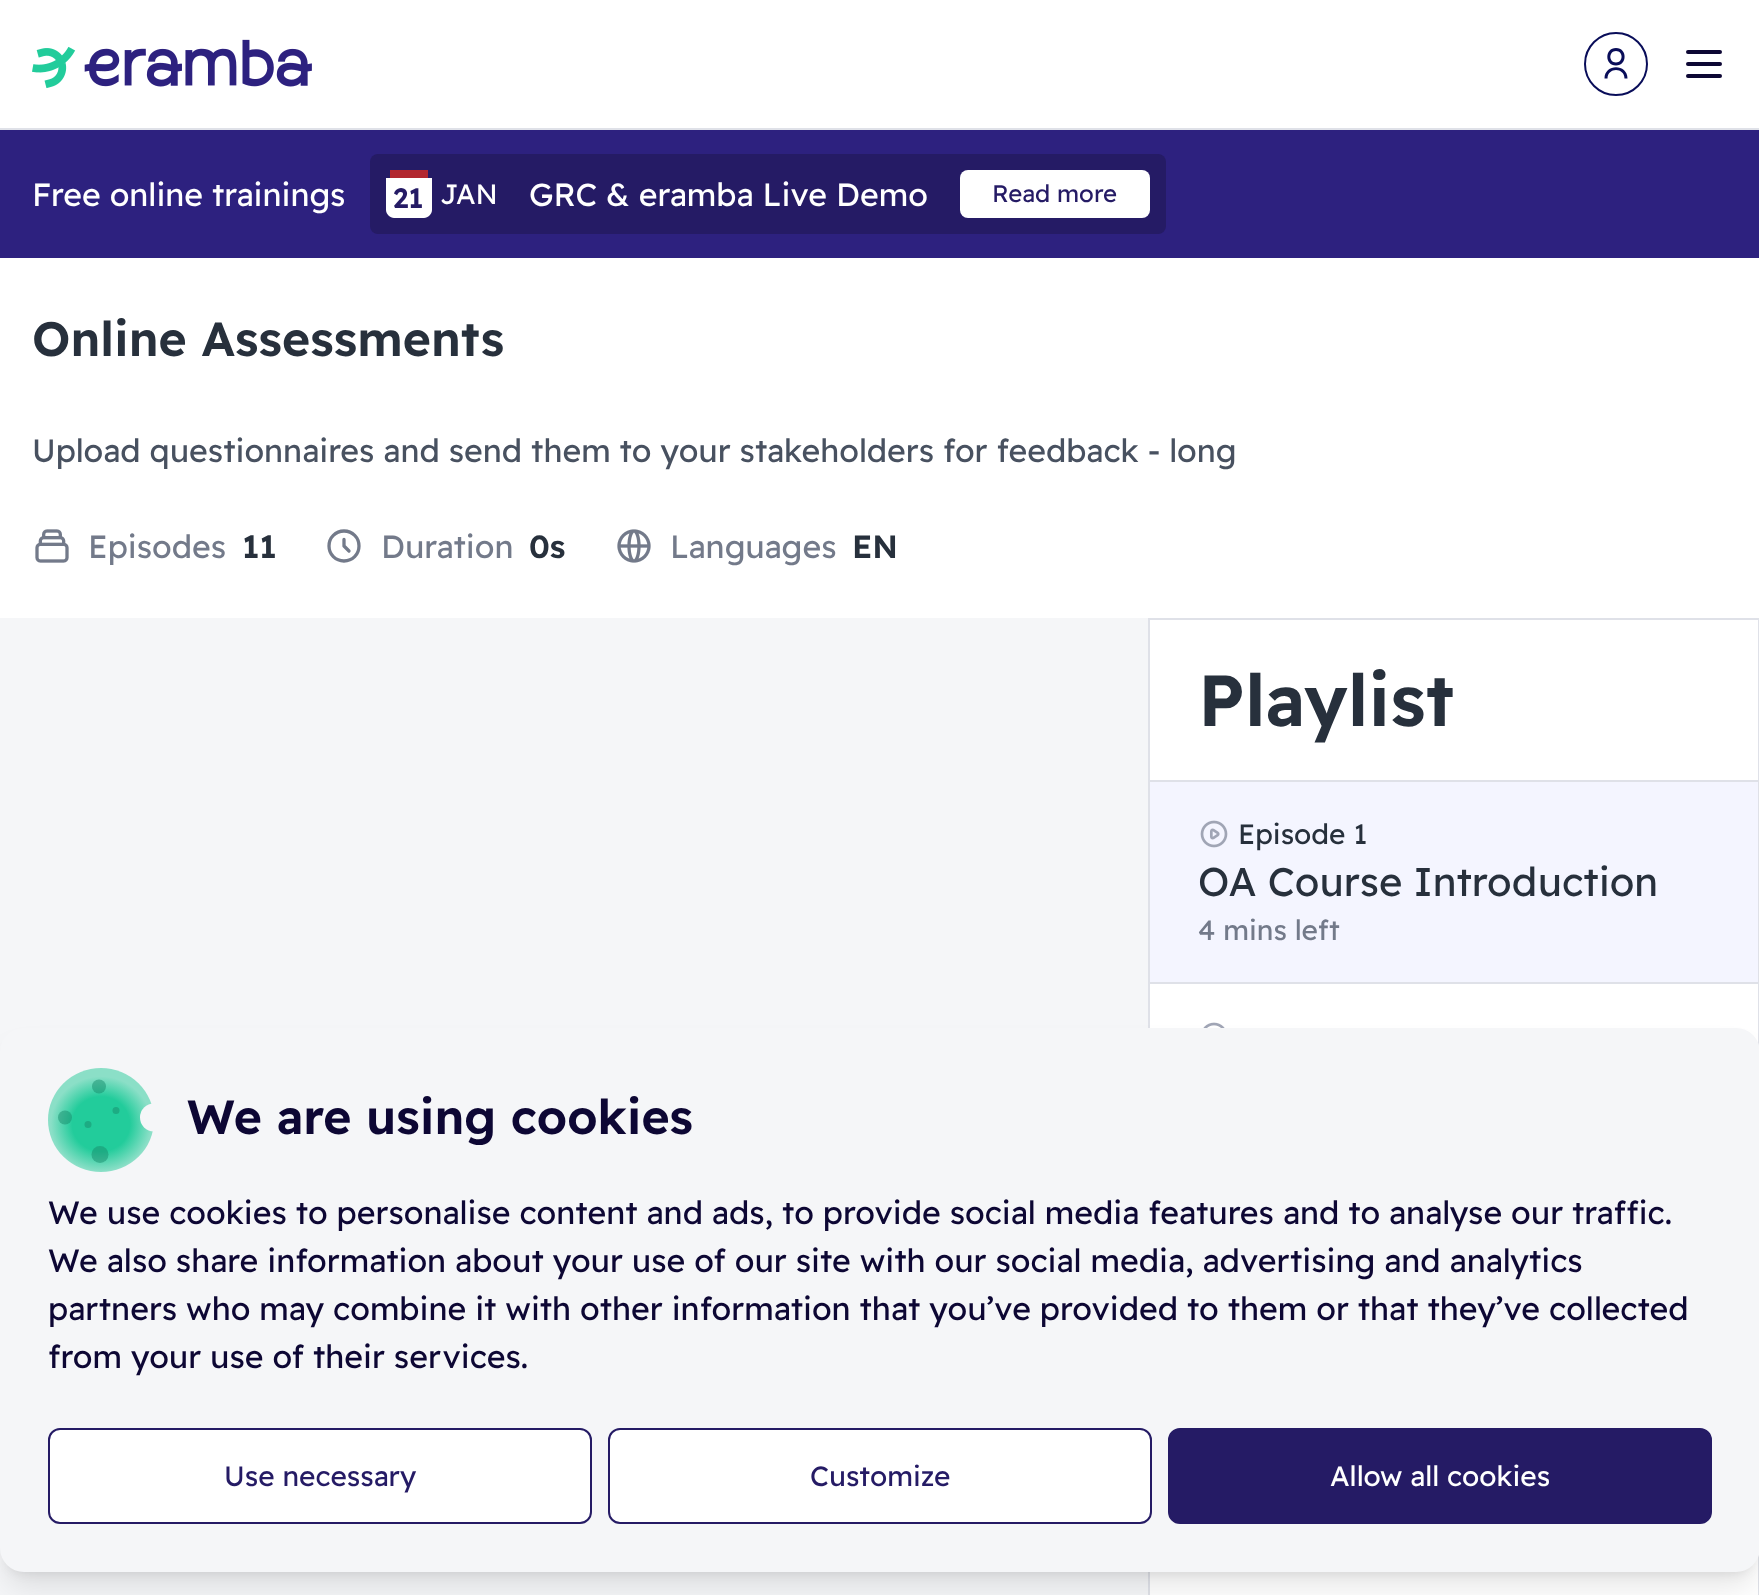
(async () => {
    const canvas = document.querySelector("canvas");
    canvas.width = 1759;
    canvas.height = 1595;
    const context = canvas.getContext("2d");
    context.miterLimit = 4;
    context.fontKerning = "normal";
    function write(s, x, y, font, color) {
        context.font = font;
        context.fillStyle = color;
        context.fillText(s, x, y);
    }
    function block(x, y, w, h, color) {
        context.fillStyle = color;
        context.fillRect(x, y, w, h);
    }
    function card(x, y, w, h, r, color) {
        context.fillStyle = color;
        context.beginPath();
        context.roundRect(x, y, w, h, r);
        context.fill();
    }
    async function photo(src, x, y, w, h) {
        const img = new Image();
        img.src = src;
        await img.decode();
        context.drawImage(img, x, y, w, h);
    }
    let gradient;

    block(0, 0, 1759, 1595, "rgb(255, 255, 255)");
    block(0, 128, 1759, 2, "rgb(223, 225, 232)");
    await photo("media/1.png", 32, 39, 280, 50);
    context.fillStyle = "rgb(9, 13, 89)";
    context.beginPath();
    context.moveTo(1604.5, 78.5);
    context.bezierCurveTo(1604.5, 63.5, 1627.5, 63.5, 1627.5, 78.5);
    context.lineTo(1624.5, 78.5);
    context.bezierCurveTo(1624.5, 67, 1607.5, 67, 1607.5, 78.5);
    context.closePath();
    context.moveTo(1616, 65.5);
    context.bezierCurveTo(1604.5, 65.5, 1604.5, 48, 1616, 48);
    context.bezierCurveTo(1627.5, 48, 1627.5, 65.5, 1616, 65.5);
    context.closePath();
    context.moveTo(1616, 62.5);
    context.bezierCurveTo(1623.5, 62.5, 1623.5, 51, 1616, 51);
    context.bezierCurveTo(1608.5, 51, 1608.5, 62.5, 1616, 62.5);
    context.closePath();
    context.fill();
    context.beginPath();
    context.arc(1616, 64, 31, 0, Math.PI * 2);
    context.strokeStyle = "rgb(9, 13, 89)";
    context.lineWidth = 2;
    context.stroke();
    context.beginPath();
    context.moveTo(1688, 52);
    context.lineTo(1720, 52);
    context.moveTo(1688, 64);
    context.lineTo(1720, 64);
    context.moveTo(1688, 76);
    context.lineTo(1720, 76);
    context.strokeStyle = "rgb(13, 7, 52)";
    context.lineWidth = 4;
    context.lineCap = "round";
    context.lineJoin = "round";
    context.stroke();
    block(0, 130, 1759, 128, "rgb(45, 33, 127)");
    write("Free online trainings", 32, 206, "32px Readex Pro", "rgb(255, 255, 255)");
    card(370, 154, 796, 80, 8, "rgb(37, 27, 101)");
    context.fillStyle = "rgb(255, 255, 255)";
    context.beginPath();
    context.moveTo(394, 178);
    context.lineTo(432, 178);
    context.lineTo(432, 210);
    context.bezierCurveTo(432, 214, 428, 218, 424, 218);
    context.lineTo(394, 218);
    context.bezierCurveTo(390, 218, 386, 214, 386, 210);
    context.lineTo(386, 178);
    context.closePath();
    context.fill();
    block(390, 170, 38, 8, "rgb(178, 39, 47)");
    write("21", 393, 208, "600 28px Readex Pro", "rgb(37, 27, 101)");
    write("JAN", 440, 204, "28px Readex Pro", "rgb(255, 255, 255)");
    write("GRC & eramba Live Demo", 529, 206, "32px Readex Pro", "rgb(255, 255, 255)");
    card(960, 170, 190, 48, 8, "rgb(255, 255, 255)");
    write("Read more", 992, 202, "24px Readex Pro", "rgb(37, 27, 101)");
    write("Online Assessments", 32, 356, "600 48px Readex Pro", "rgb(39, 48, 60)");
    write("Upload questionnaires and send them to your stakeholders for feedback - long", 32, 462, "32px Readex Pro", "rgb(72, 81, 96)");
    await photo("media/2.png", 35, 529, 34, 34);
    write("Episodes", 88, 558, "32px Readex Pro", "rgb(115, 122, 138)");
    write("11", 242, 558, "600 32px Readex Pro", "rgb(39, 48, 60)");
    context.beginPath();
    context.moveTo(344, 539.5);
    context.lineTo(344, 546);
    context.lineTo(349, 551);
    context.moveTo(359, 546);
    context.bezierCurveTo(359, 554.5, 352.5, 561, 344, 561);
    context.bezierCurveTo(335.5, 561, 329, 554.5, 329, 546);
    context.bezierCurveTo(329, 537.5, 335.5, 531, 344, 531);
    context.bezierCurveTo(352.5, 531, 359, 537.5, 359, 546);
    context.closePath();
    context.strokeStyle = "rgb(115, 122, 138)";
    context.lineWidth = 3.3;
    context.stroke();
    write("Duration", 381, 558, "32px Readex Pro", "rgb(115, 122, 138)");
    write("0s", 529, 558, "600 32px Readex Pro", "rgb(39, 48, 60)");
    await photo("media/3.png", 617, 529, 34, 34);
    write("Languages", 670, 558, "32px Readex Pro", "rgb(115, 122, 138)");
    write("EN", 852, 558, "600 32px Readex Pro", "rgb(39, 48, 60)");
    block(0, 618, 1148, 977, "rgb(245, 246, 248)");
    context.strokeStyle = "rgb(223, 225, 232)";
    context.lineWidth = 2;
    context.lineJoin = "miter";
    context.strokeRect(1149, 619, 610, 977);
    write("Playlist", 1198, 726, "600 72px Readex Pro", "rgb(39, 48, 60)");
    block(1150, 780, 608, 2, "rgb(223, 225, 232)");
    block(1150, 782, 608, 200, "rgb(244, 245, 255)");
    await photo("media/4.png", 1200, 820, 28, 28);
    write("Episode 1", 1238, 844, "28px Readex Pro", "rgb(39, 48, 60)");
    write("OA Course Introduction", 1198, 896, "40px Readex Pro", "rgb(39, 48, 60)");
    write("4 mins left", 1198, 940, "28px Readex Pro", "rgb(115, 122, 138)");
    block(1150, 982, 608, 2, "rgb(223, 225, 232)");
    await photo("media/5.png", 1203, 1022, 22, 6);
    context.fillStyle = "rgba(0, 0, 0, 0.1)";
    context.filter = "blur(6px)";
    context.beginPath();
    context.roundRect(8, 1044, 1744, 528, 16);
    context.fill();
    context.filter = "none";
    context.filter = "blur(15px)";
    context.beginPath();
    context.roundRect(6, 1054, 1748, 532, 18);
    context.fill();
    context.filter = "none";
    card(0, 1028, 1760, 544, 24, "rgb(245, 246, 248)");
    gradient = context.createRadialGradient(101, 1187.86, 0, 101, 1187.86, 93);
    gradient.addColorStop(0, "rgb(34, 204, 155)");
    gradient.addColorStop(0.31, "rgb(34, 204, 155)");
    gradient.addColorStop(0.54, "rgb(139, 223, 199)");
    context.fillStyle = gradient;
    context.beginPath();
    context.ellipse(101, 1120, 53, 52, 0, 0, Math.PI * 2);
    context.save();
    context.clip();
    context.scale(1, 88 / 93);
    context.fillRect(0, 0, 1759, 1686);
    context.restore();
    context.fillStyle = "rgba(23, 140, 107, 0.5)";
    context.beginPath();
    context.arc(100, 1154.5, 8.5, 0, Math.PI * 2);
    context.fill();
    context.fillStyle = "rgb(245, 246, 248)";
    context.beginPath();
    context.arc(154, 1117.5, 14, 0, Math.PI * 2);
    context.fill();
    context.fillStyle = "rgba(23, 140, 107, 0.5)";
    context.beginPath();
    context.arc(65, 1117.5, 7, 0, Math.PI * 2);
    context.fill();
    context.beginPath();
    context.arc(99, 1086.5, 7, 0, Math.PI * 2);
    context.fill();
    context.fillStyle = "rgb(29, 172, 131)";
    context.beginPath();
    context.arc(88, 1124.5, 3.5, 0, Math.PI * 2);
    context.fill();
    context.beginPath();
    context.arc(116, 1110.5, 3.5, 0, Math.PI * 2);
    context.fill();
    write("We are using cookies", 187, 1134, "600 48px Readex Pro", "rgb(13, 7, 52)");
    write("We use cookies to personalise content and ads, to provide social media features and to analyse our traffic.", 48, 1224, "32px Readex Pro", "rgb(13, 7, 52)");
    write("We also share information about your use of our site with our social media, advertising and analytics", 48, 1272, "32px Readex Pro", "rgb(13, 7, 52)");
    write("partners who may combine it with other information that you’ve provided to them or that they’ve collected", 48, 1320, "32px Readex Pro", "rgb(13, 7, 52)");
    write("from your use of their services.", 48, 1368, "32px Readex Pro", "rgb(13, 7, 52)");
    context.fillStyle = "rgb(255, 255, 255)";
    context.beginPath();
    context.roundRect(49, 1429, 542, 94, 11);
    context.fill();
    context.strokeStyle = "rgb(37, 27, 101)";
    context.stroke();
    write("Use necessary", 224, 1486, "28px Readex Pro", "rgb(37, 27, 101)");
    context.fillStyle = "rgb(255, 255, 255)";
    context.beginPath();
    context.roundRect(609, 1429, 542, 94, 11);
    context.fill();
    context.stroke();
    write("Customize", 810, 1486, "28px Readex Pro", "rgb(37, 27, 101)");
    context.beginPath();
    context.roundRect(1169, 1429, 542, 94, 11);
    context.fill();
    context.stroke();
    write("Allow all cookies", 1330, 1486, "28px Readex Pro", "rgb(255, 255, 255)");
})();
